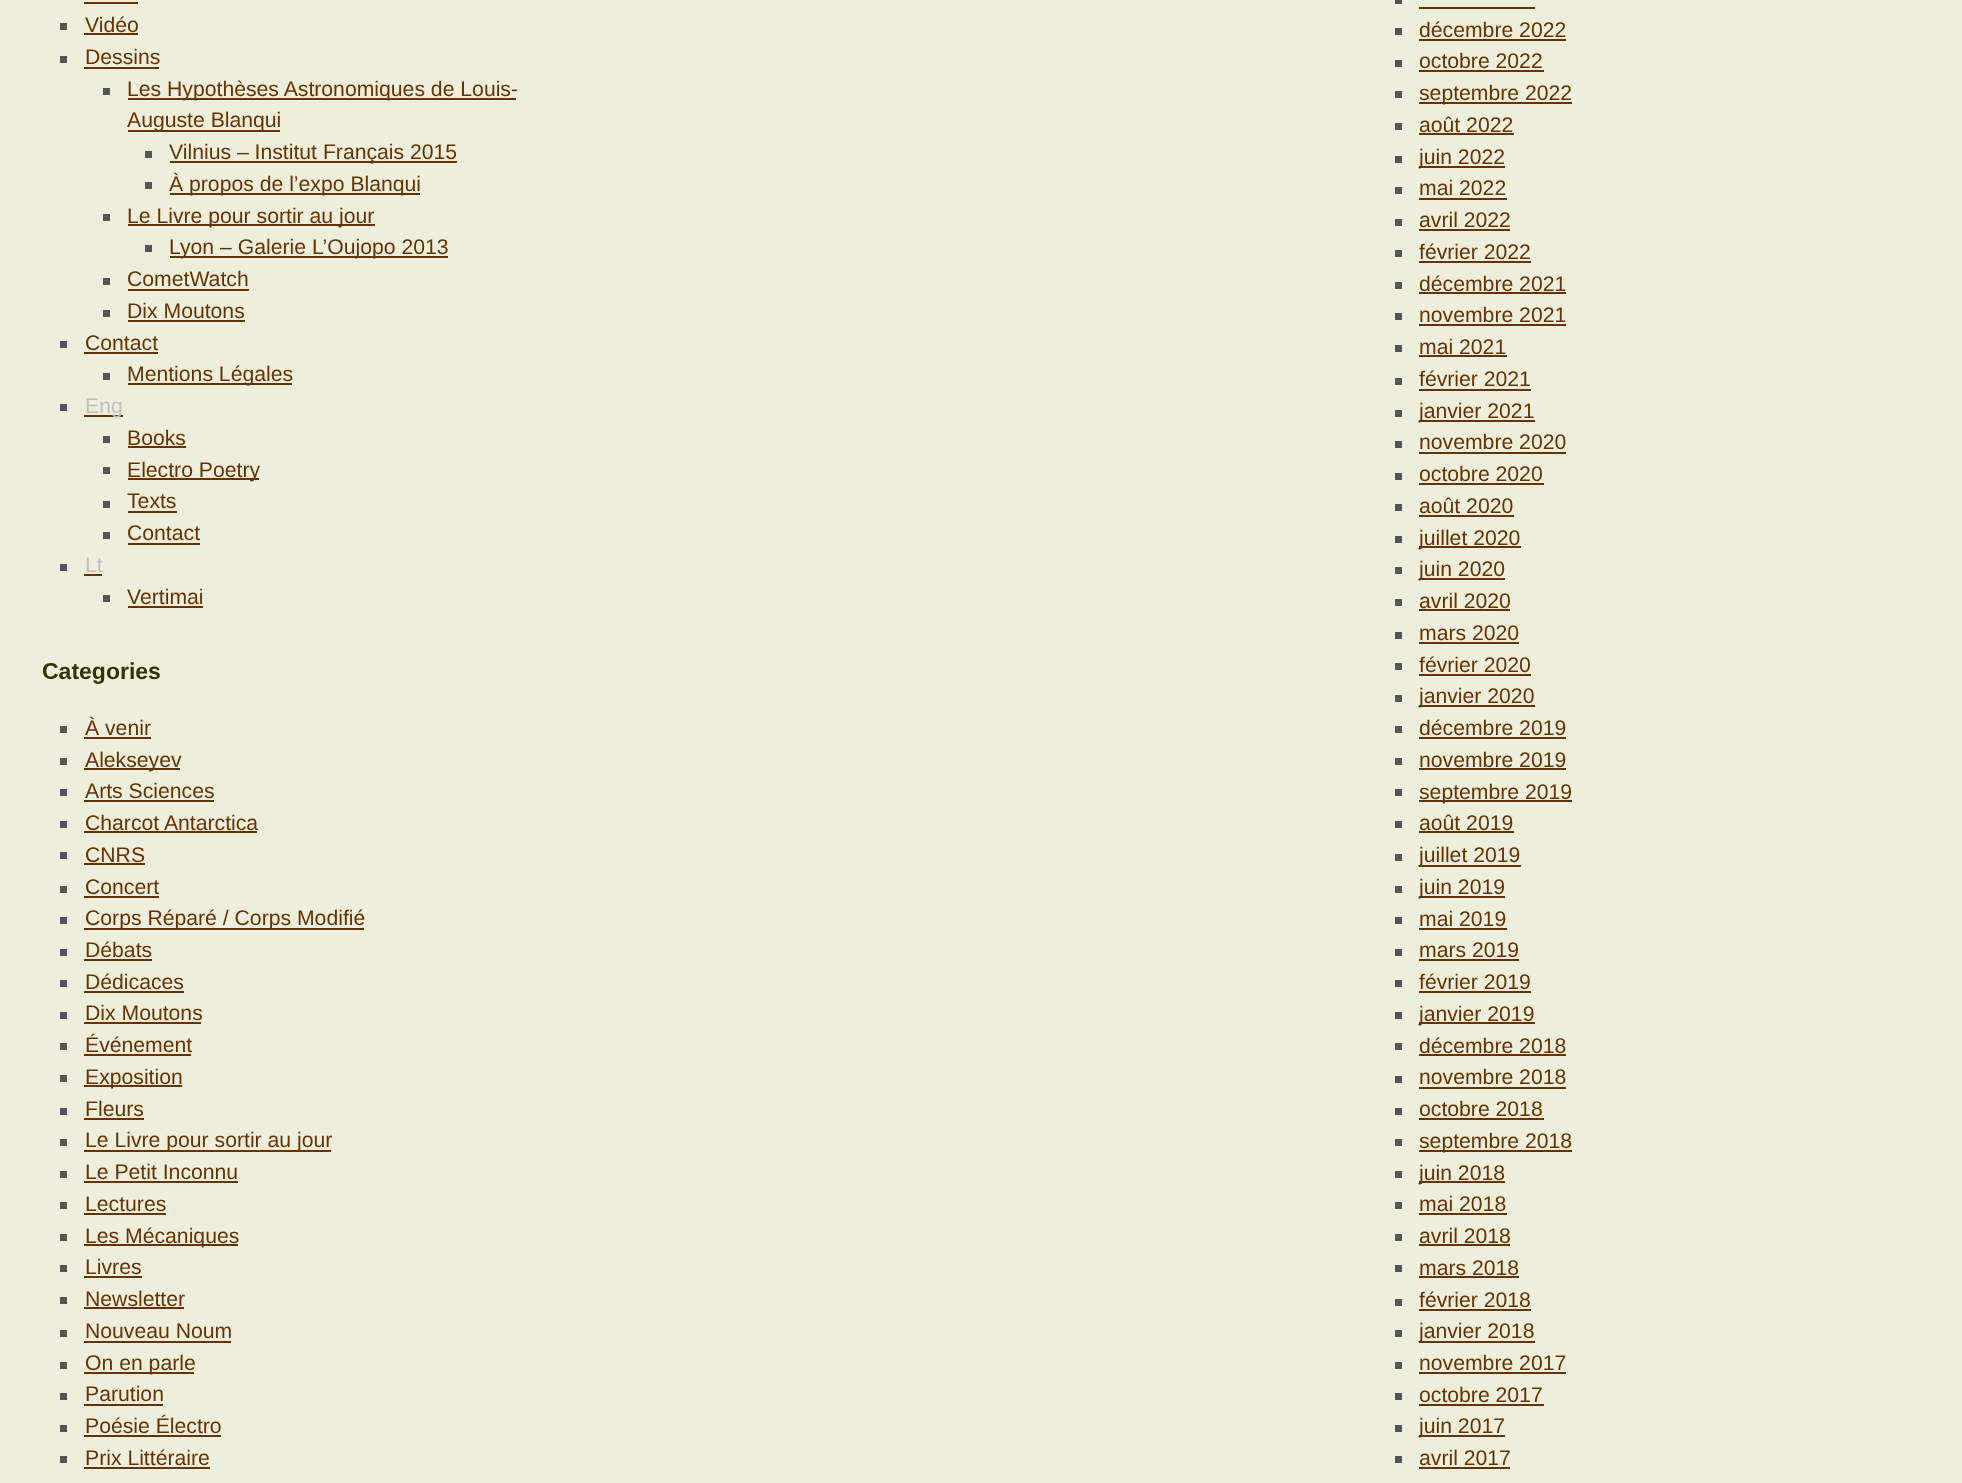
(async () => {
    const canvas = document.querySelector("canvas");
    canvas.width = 1962;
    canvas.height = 1483;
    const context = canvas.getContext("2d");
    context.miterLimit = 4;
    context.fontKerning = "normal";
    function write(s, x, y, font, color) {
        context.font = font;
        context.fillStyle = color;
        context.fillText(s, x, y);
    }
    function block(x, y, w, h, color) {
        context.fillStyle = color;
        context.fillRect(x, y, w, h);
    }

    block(0, 0, 1962, 1483, "rgb(238, 238, 220)");
    block(84, 2, 54, 2, "rgb(102, 51, 0)");
    block(60, 23, 7, 7, "rgb(85, 85, 85)");
    write("Vidéo", 85, 32, "21.2px Liberation Sans", "rgb(102, 51, 0)");
    block(84, 33, 54, 2, "rgb(102, 51, 0)");
    block(60, 56, 7, 7, "rgb(85, 85, 85)");
    write("Dessins", 85, 64, "21.2px Liberation Sans", "rgb(102, 51, 0)");
    block(84, 67, 75, 2, "rgb(102, 51, 0)");
    block(103, 88, 7, 7, "rgb(85, 85, 85)");
    block(128, 98, 388, 2, "rgb(102, 51, 0)");
    write("Les Hypothèses Astronomiques de Louis-", 127, 96, "21.2px Liberation Sans", "rgb(102, 51, 0)");
    block(128, 130, 152, 2, "rgb(102, 51, 0)");
    write("Auguste Blanqui", 127, 127, "21.2px Liberation Sans", "rgb(102, 51, 0)");
    block(145, 151, 7, 7, "rgb(85, 85, 85)");
    block(170, 161, 287, 2, "rgb(102, 51, 0)");
    write("Vilnius – Institut Français 2015", 169, 159, "21.2px Liberation Sans", "rgb(102, 51, 0)");
    block(145, 182, 7, 7, "rgb(85, 85, 85)");
    block(170, 193, 250, 2, "rgb(102, 51, 0)");
    write("À propos de l’expo Blanqui", 169, 191, "21.2px Liberation Sans", "rgb(102, 51, 0)");
    block(103, 214, 7, 7, "rgb(85, 85, 85)");
    block(128, 224, 247, 2, "rgb(102, 51, 0)");
    write("Le Livre pour sortir au jour", 127, 223, "21.2px Liberation Sans", "rgb(102, 51, 0)");
    block(145, 245, 7, 7, "rgb(85, 85, 85)");
    block(170, 256, 278, 2, "rgb(102, 51, 0)");
    write("Lyon – Galerie L’Oujopo 2013", 169, 254, "21.2px Liberation Sans", "rgb(102, 51, 0)");
    block(103, 278, 7, 7, "rgb(85, 85, 85)");
    write("CometWatch", 127, 286, "21.2px Liberation Sans", "rgb(102, 51, 0)");
    block(128, 289, 121, 2, "rgb(102, 51, 0)");
    block(103, 310, 7, 7, "rgb(85, 85, 85)");
    write("Dix Moutons", 127, 318, "21.2px Liberation Sans", "rgb(102, 51, 0)");
    block(128, 320, 117, 2, "rgb(102, 51, 0)");
    block(60, 341, 7, 7, "rgb(85, 85, 85)");
    write("Contact", 85, 350, "21.2px Liberation Sans", "rgb(102, 51, 0)");
    block(84, 352, 74, 2, "rgb(102, 51, 0)");
    block(103, 373, 7, 7, "rgb(85, 85, 85)");
    block(128, 383, 164, 2, "rgb(102, 51, 0)");
    write("Mentions Légales", 127, 381, "21.2px Liberation Sans", "rgb(102, 51, 0)");
    block(60, 404, 7, 7, "rgb(85, 85, 85)");
    block(84, 415, 39, 2, "rgb(102, 51, 0)");
    write("Eng", 85, 413, "21.2px Liberation Sans", "rgb(192, 192, 192)");
    block(103, 436, 7, 7, "rgb(85, 85, 85)");
    write("Books", 127, 445, "21.2px Liberation Sans", "rgb(102, 51, 0)");
    block(128, 446, 58, 2, "rgb(102, 51, 0)");
    block(103, 467, 7, 7, "rgb(85, 85, 85)");
    block(128, 478, 131, 2, "rgb(102, 51, 0)");
    write("Electro Poetry", 127, 477, "21.2px Liberation Sans", "rgb(102, 51, 0)");
    block(103, 501, 7, 7, "rgb(85, 85, 85)");
    write("Texts", 127, 508, "21.2px Liberation Sans", "rgb(102, 51, 0)");
    block(128, 511, 49, 2, "rgb(102, 51, 0)");
    block(103, 532, 7, 7, "rgb(85, 85, 85)");
    write("Contact", 127, 540, "21.2px Liberation Sans", "rgb(102, 51, 0)");
    block(128, 543, 72, 2, "rgb(102, 51, 0)");
    block(60, 564, 7, 7, "rgb(85, 85, 85)");
    write("Lt", 85, 572, "21.2px Liberation Sans", "rgb(192, 192, 192)");
    block(84, 574, 18, 2, "rgb(102, 51, 0)");
    block(103, 595, 7, 7, "rgb(85, 85, 85)");
    write("Vertimai", 127, 604, "21.2px Liberation Sans", "rgb(102, 51, 0)");
    block(128, 606, 75, 2, "rgb(102, 51, 0)");
    write("Categories", 42, 679, "bold 23px Liberation Sans", "rgb(51, 51, 0)");
    block(60, 726, 7, 7, "rgb(85, 85, 85)");
    write("À venir", 85, 735, "21.2px Liberation Sans", "rgb(102, 51, 0)");
    block(84, 737, 67, 2, "rgb(102, 51, 0)");
    block(60, 758, 7, 7, "rgb(85, 85, 85)");
    block(84, 768, 96, 2, "rgb(102, 51, 0)");
    write("Alekseyev", 85, 767, "21.2px Liberation Sans", "rgb(102, 51, 0)");
    block(60, 789, 7, 7, "rgb(85, 85, 85)");
    write("Arts Sciences", 85, 798, "21.2px Liberation Sans", "rgb(102, 51, 0)");
    block(84, 800, 130, 2, "rgb(102, 51, 0)");
    block(60, 821, 7, 7, "rgb(85, 85, 85)");
    write("Charcot Antarctica", 85, 830, "21.2px Liberation Sans", "rgb(102, 51, 0)");
    block(84, 831, 173, 2, "rgb(102, 51, 0)");
    block(60, 852, 7, 7, "rgb(85, 85, 85)");
    write("CNRS", 85, 862, "21.2px Liberation Sans", "rgb(102, 51, 0)");
    block(84, 863, 61, 2, "rgb(102, 51, 0)");
    block(60, 886, 7, 7, "rgb(85, 85, 85)");
    write("Concert", 85, 894, "21.2px Liberation Sans", "rgb(102, 51, 0)");
    block(84, 896, 75, 2, "rgb(102, 51, 0)");
    block(60, 917, 7, 7, "rgb(85, 85, 85)");
    block(84, 928, 280, 2, "rgb(102, 51, 0)");
    write("Corps Réparé / Corps Modifié", 85, 925, "21.2px Liberation Sans", "rgb(102, 51, 0)");
    block(60, 949, 7, 7, "rgb(85, 85, 85)");
    write("Débats", 85, 957, "21.2px Liberation Sans", "rgb(102, 51, 0)");
    block(84, 959, 68, 2, "rgb(102, 51, 0)");
    block(60, 980, 7, 7, "rgb(85, 85, 85)");
    write("Dédicaces", 85, 989, "21.2px Liberation Sans", "rgb(102, 51, 0)");
    block(84, 991, 100, 2, "rgb(102, 51, 0)");
    block(60, 1012, 7, 7, "rgb(85, 85, 85)");
    write("Dix Moutons", 85, 1020, "21.2px Liberation Sans", "rgb(102, 51, 0)");
    block(84, 1022, 117, 2, "rgb(102, 51, 0)");
    block(60, 1043, 7, 7, "rgb(85, 85, 85)");
    write("Événement", 85, 1052, "21.2px Liberation Sans", "rgb(102, 51, 0)");
    block(84, 1054, 107, 2, "rgb(102, 51, 0)");
    block(60, 1075, 7, 7, "rgb(85, 85, 85)");
    block(84, 1085, 98, 2, "rgb(102, 51, 0)");
    write("Exposition", 85, 1084, "21.2px Liberation Sans", "rgb(102, 51, 0)");
    block(60, 1108, 7, 7, "rgb(85, 85, 85)");
    write("Fleurs", 85, 1116, "21.2px Liberation Sans", "rgb(102, 51, 0)");
    block(84, 1118, 60, 2, "rgb(102, 51, 0)");
    block(60, 1139, 7, 7, "rgb(85, 85, 85)");
    block(84, 1150, 247, 2, "rgb(102, 51, 0)");
    write("Le Livre pour sortir au jour", 85, 1147, "21.2px Liberation Sans", "rgb(102, 51, 0)");
    block(60, 1171, 7, 7, "rgb(85, 85, 85)");
    write("Le Petit Inconnu", 85, 1179, "21.2px Liberation Sans", "rgb(102, 51, 0)");
    block(84, 1181, 154, 2, "rgb(102, 51, 0)");
    block(60, 1202, 7, 7, "rgb(85, 85, 85)");
    write("Lectures", 85, 1211, "21.2px Liberation Sans", "rgb(102, 51, 0)");
    block(84, 1213, 82, 2, "rgb(102, 51, 0)");
    block(60, 1234, 7, 7, "rgb(85, 85, 85)");
    block(84, 1244, 154, 2, "rgb(102, 51, 0)");
    write("Les Mécaniques", 85, 1243, "21.2px Liberation Sans", "rgb(102, 51, 0)");
    block(60, 1265, 7, 7, "rgb(85, 85, 85)");
    write("Livres", 85, 1274, "21.2px Liberation Sans", "rgb(102, 51, 0)");
    block(84, 1276, 58, 2, "rgb(102, 51, 0)");
    block(60, 1297, 7, 7, "rgb(85, 85, 85)");
    write("Newsletter", 85, 1306, "21.2px Liberation Sans", "rgb(102, 51, 0)");
    block(84, 1307, 100, 2, "rgb(102, 51, 0)");
    block(60, 1330, 7, 7, "rgb(85, 85, 85)");
    write("Nouveau Noum", 85, 1338, "21.2px Liberation Sans", "rgb(102, 51, 0)");
    block(84, 1341, 147, 2, "rgb(102, 51, 0)");
    block(60, 1362, 7, 7, "rgb(85, 85, 85)");
    block(84, 1372, 110, 2, "rgb(102, 51, 0)");
    write("On en parle", 85, 1370, "21.2px Liberation Sans", "rgb(102, 51, 0)");
    block(60, 1393, 7, 7, "rgb(85, 85, 85)");
    write("Parution", 85, 1401, "21.2px Liberation Sans", "rgb(102, 51, 0)");
    block(84, 1404, 79, 2, "rgb(102, 51, 0)");
    block(60, 1425, 7, 7, "rgb(85, 85, 85)");
    write("Poésie Électro", 85, 1433, "21.2px Liberation Sans", "rgb(102, 51, 0)");
    block(84, 1435, 137, 2, "rgb(102, 51, 0)");
    block(60, 1456, 7, 7, "rgb(85, 85, 85)");
    write("Prix Littéraire", 85, 1465, "21.2px Liberation Sans", "rgb(102, 51, 0)");
    block(84, 1467, 126, 2, "rgb(102, 51, 0)");
    block(1395, 0, 7, 4, "rgb(85, 85, 85)");
    block(1419, 7, 116, 2, "rgb(102, 51, 0)");
    block(1395, 28, 7, 7, "rgb(85, 85, 85)");
    write("décembre 2022", 1419, 37, "21.2px Liberation Sans", "rgb(102, 51, 0)");
    block(1419, 39, 147, 2, "rgb(102, 51, 0)");
    block(1395, 60, 7, 7, "rgb(85, 85, 85)");
    write("octobre 2022", 1419, 68, "21.2px Liberation Sans", "rgb(102, 51, 0)");
    block(1419, 70, 125, 2, "rgb(102, 51, 0)");
    block(1395, 91, 7, 7, "rgb(85, 85, 85)");
    block(1419, 102, 153, 2, "rgb(102, 51, 0)");
    write("septembre 2022", 1419, 100, "21.2px Liberation Sans", "rgb(102, 51, 0)");
    block(1395, 123, 7, 7, "rgb(85, 85, 85)");
    write("août 2022", 1419, 132, "21.2px Liberation Sans", "rgb(102, 51, 0)");
    block(1419, 133, 95, 2, "rgb(102, 51, 0)");
    block(1395, 156, 7, 7, "rgb(85, 85, 85)");
    block(1419, 166, 86, 2, "rgb(102, 51, 0)");
    write("juin 2022", 1419, 164, "21.2px Liberation Sans", "rgb(102, 51, 0)");
    block(1395, 187, 7, 7, "rgb(85, 85, 85)");
    write("mai 2022", 1419, 195, "21.2px Liberation Sans", "rgb(102, 51, 0)");
    block(1419, 198, 88, 2, "rgb(102, 51, 0)");
    block(1395, 219, 7, 7, "rgb(85, 85, 85)");
    write("avril 2022", 1419, 227, "21.2px Liberation Sans", "rgb(102, 51, 0)");
    block(1419, 229, 91, 2, "rgb(102, 51, 0)");
    block(1395, 250, 7, 7, "rgb(85, 85, 85)");
    write("février 2022", 1419, 259, "21.2px Liberation Sans", "rgb(102, 51, 0)");
    block(1419, 261, 112, 2, "rgb(102, 51, 0)");
    block(1395, 282, 7, 7, "rgb(85, 85, 85)");
    write("décembre 2021", 1419, 291, "21.2px Liberation Sans", "rgb(102, 51, 0)");
    block(1419, 292, 147, 2, "rgb(102, 51, 0)");
    block(1395, 313, 7, 7, "rgb(85, 85, 85)");
    write("novembre 2021", 1419, 322, "21.2px Liberation Sans", "rgb(102, 51, 0)");
    block(1419, 324, 147, 2, "rgb(102, 51, 0)");
    block(1395, 345, 7, 7, "rgb(85, 85, 85)");
    write("mai 2021", 1419, 354, "21.2px Liberation Sans", "rgb(102, 51, 0)");
    block(1419, 355, 88, 2, "rgb(102, 51, 0)");
    block(1395, 378, 7, 7, "rgb(85, 85, 85)");
    write("février 2021", 1419, 386, "21.2px Liberation Sans", "rgb(102, 51, 0)");
    block(1419, 389, 112, 2, "rgb(102, 51, 0)");
    block(1395, 410, 7, 7, "rgb(85, 85, 85)");
    block(1419, 420, 116, 2, "rgb(102, 51, 0)");
    write("janvier 2021", 1419, 418, "21.2px Liberation Sans", "rgb(102, 51, 0)");
    block(1395, 441, 7, 7, "rgb(85, 85, 85)");
    write("novembre 2020", 1419, 449, "21.2px Liberation Sans", "rgb(102, 51, 0)");
    block(1419, 452, 147, 2, "rgb(102, 51, 0)");
    block(1395, 473, 7, 7, "rgb(85, 85, 85)");
    write("octobre 2020", 1419, 481, "21.2px Liberation Sans", "rgb(102, 51, 0)");
    block(1419, 483, 125, 2, "rgb(102, 51, 0)");
    block(1395, 504, 7, 7, "rgb(85, 85, 85)");
    write("août 2020", 1419, 513, "21.2px Liberation Sans", "rgb(102, 51, 0)");
    block(1419, 515, 95, 2, "rgb(102, 51, 0)");
    block(1395, 536, 7, 7, "rgb(85, 85, 85)");
    block(1419, 546, 102, 2, "rgb(102, 51, 0)");
    write("juillet 2020", 1419, 545, "21.2px Liberation Sans", "rgb(102, 51, 0)");
    block(1395, 567, 7, 7, "rgb(85, 85, 85)");
    block(1419, 578, 86, 2, "rgb(102, 51, 0)");
    write("juin 2020", 1419, 576, "21.2px Liberation Sans", "rgb(102, 51, 0)");
    block(1395, 599, 7, 7, "rgb(85, 85, 85)");
    write("avril 2020", 1419, 608, "21.2px Liberation Sans", "rgb(102, 51, 0)");
    block(1419, 609, 91, 2, "rgb(102, 51, 0)");
    block(1395, 632, 7, 7, "rgb(85, 85, 85)");
    write("mars 2020", 1419, 640, "21.2px Liberation Sans", "rgb(102, 51, 0)");
    block(1419, 642, 100, 2, "rgb(102, 51, 0)");
    block(1395, 663, 7, 7, "rgb(85, 85, 85)");
    write("février 2020", 1419, 672, "21.2px Liberation Sans", "rgb(102, 51, 0)");
    block(1419, 674, 112, 2, "rgb(102, 51, 0)");
    block(1395, 695, 7, 7, "rgb(85, 85, 85)");
    block(1419, 705, 116, 2, "rgb(102, 51, 0)");
    write("janvier 2020", 1419, 703, "21.2px Liberation Sans", "rgb(102, 51, 0)");
    block(1395, 726, 7, 7, "rgb(85, 85, 85)");
    write("décembre 2019", 1419, 735, "21.2px Liberation Sans", "rgb(102, 51, 0)");
    block(1419, 737, 147, 2, "rgb(102, 51, 0)");
    block(1395, 758, 7, 7, "rgb(85, 85, 85)");
    write("novembre 2019", 1419, 767, "21.2px Liberation Sans", "rgb(102, 51, 0)");
    block(1419, 768, 147, 2, "rgb(102, 51, 0)");
    block(1395, 789, 7, 7, "rgb(85, 85, 85)");
    block(1419, 800, 153, 2, "rgb(102, 51, 0)");
    write("septembre 2019", 1419, 799, "21.2px Liberation Sans", "rgb(102, 51, 0)");
    block(1395, 821, 7, 7, "rgb(85, 85, 85)");
    write("août 2019", 1419, 830, "21.2px Liberation Sans", "rgb(102, 51, 0)");
    block(1419, 831, 95, 2, "rgb(102, 51, 0)");
    block(1395, 854, 7, 7, "rgb(85, 85, 85)");
    block(1419, 865, 102, 2, "rgb(102, 51, 0)");
    write("juillet 2019", 1419, 862, "21.2px Liberation Sans", "rgb(102, 51, 0)");
    block(1395, 886, 7, 7, "rgb(85, 85, 85)");
    block(1419, 896, 86, 2, "rgb(102, 51, 0)");
    write("juin 2019", 1419, 894, "21.2px Liberation Sans", "rgb(102, 51, 0)");
    block(1395, 917, 7, 7, "rgb(85, 85, 85)");
    write("mai 2019", 1419, 926, "21.2px Liberation Sans", "rgb(102, 51, 0)");
    block(1419, 928, 88, 2, "rgb(102, 51, 0)");
    block(1395, 949, 7, 7, "rgb(85, 85, 85)");
    write("mars 2019", 1419, 957, "21.2px Liberation Sans", "rgb(102, 51, 0)");
    block(1419, 959, 100, 2, "rgb(102, 51, 0)");
    block(1395, 980, 7, 7, "rgb(85, 85, 85)");
    write("février 2019", 1419, 989, "21.2px Liberation Sans", "rgb(102, 51, 0)");
    block(1419, 991, 112, 2, "rgb(102, 51, 0)");
    block(1395, 1012, 7, 7, "rgb(85, 85, 85)");
    block(1419, 1022, 116, 2, "rgb(102, 51, 0)");
    write("janvier 2019", 1419, 1021, "21.2px Liberation Sans", "rgb(102, 51, 0)");
    block(1395, 1043, 7, 7, "rgb(85, 85, 85)");
    write("décembre 2018", 1419, 1053, "21.2px Liberation Sans", "rgb(102, 51, 0)");
    block(1419, 1054, 147, 2, "rgb(102, 51, 0)");
    block(1395, 1076, 7, 7, "rgb(85, 85, 85)");
    write("novembre 2018", 1419, 1084, "21.2px Liberation Sans", "rgb(102, 51, 0)");
    block(1419, 1087, 147, 2, "rgb(102, 51, 0)");
    block(1395, 1108, 7, 7, "rgb(85, 85, 85)");
    write("octobre 2018", 1419, 1116, "21.2px Liberation Sans", "rgb(102, 51, 0)");
    block(1419, 1118, 125, 2, "rgb(102, 51, 0)");
    block(1395, 1139, 7, 7, "rgb(85, 85, 85)");
    block(1419, 1150, 153, 2, "rgb(102, 51, 0)");
    write("septembre 2018", 1419, 1148, "21.2px Liberation Sans", "rgb(102, 51, 0)");
    block(1395, 1171, 7, 7, "rgb(85, 85, 85)");
    block(1419, 1181, 86, 2, "rgb(102, 51, 0)");
    write("juin 2018", 1419, 1180, "21.2px Liberation Sans", "rgb(102, 51, 0)");
    block(1395, 1202, 7, 7, "rgb(85, 85, 85)");
    write("mai 2018", 1419, 1211, "21.2px Liberation Sans", "rgb(102, 51, 0)");
    block(1419, 1213, 88, 2, "rgb(102, 51, 0)");
    block(1395, 1234, 7, 7, "rgb(85, 85, 85)");
    write("avril 2018", 1419, 1243, "21.2px Liberation Sans", "rgb(102, 51, 0)");
    block(1419, 1244, 91, 2, "rgb(102, 51, 0)");
    block(1395, 1265, 7, 7, "rgb(85, 85, 85)");
    write("mars 2018", 1419, 1275, "21.2px Liberation Sans", "rgb(102, 51, 0)");
    block(1419, 1276, 100, 2, "rgb(102, 51, 0)");
    block(1395, 1299, 7, 7, "rgb(85, 85, 85)");
    write("février 2018", 1419, 1307, "21.2px Liberation Sans", "rgb(102, 51, 0)");
    block(1419, 1309, 112, 2, "rgb(102, 51, 0)");
    block(1395, 1330, 7, 7, "rgb(85, 85, 85)");
    block(1419, 1341, 116, 2, "rgb(102, 51, 0)");
    write("janvier 2018", 1419, 1338, "21.2px Liberation Sans", "rgb(102, 51, 0)");
    block(1395, 1362, 7, 7, "rgb(85, 85, 85)");
    write("novembre 2017", 1419, 1370, "21.2px Liberation Sans", "rgb(102, 51, 0)");
    block(1419, 1372, 147, 2, "rgb(102, 51, 0)");
    block(1395, 1393, 7, 7, "rgb(85, 85, 85)");
    write("octobre 2017", 1419, 1402, "21.2px Liberation Sans", "rgb(102, 51, 0)");
    block(1419, 1404, 125, 2, "rgb(102, 51, 0)");
    block(1395, 1425, 7, 7, "rgb(85, 85, 85)");
    block(1419, 1435, 86, 2, "rgb(102, 51, 0)");
    write("juin 2017", 1419, 1433, "21.2px Liberation Sans", "rgb(102, 51, 0)");
    block(1395, 1456, 7, 7, "rgb(85, 85, 85)");
    write("avril 2017", 1419, 1465, "21.2px Liberation Sans", "rgb(102, 51, 0)");
    block(1419, 1467, 91, 2, "rgb(102, 51, 0)");
})();
